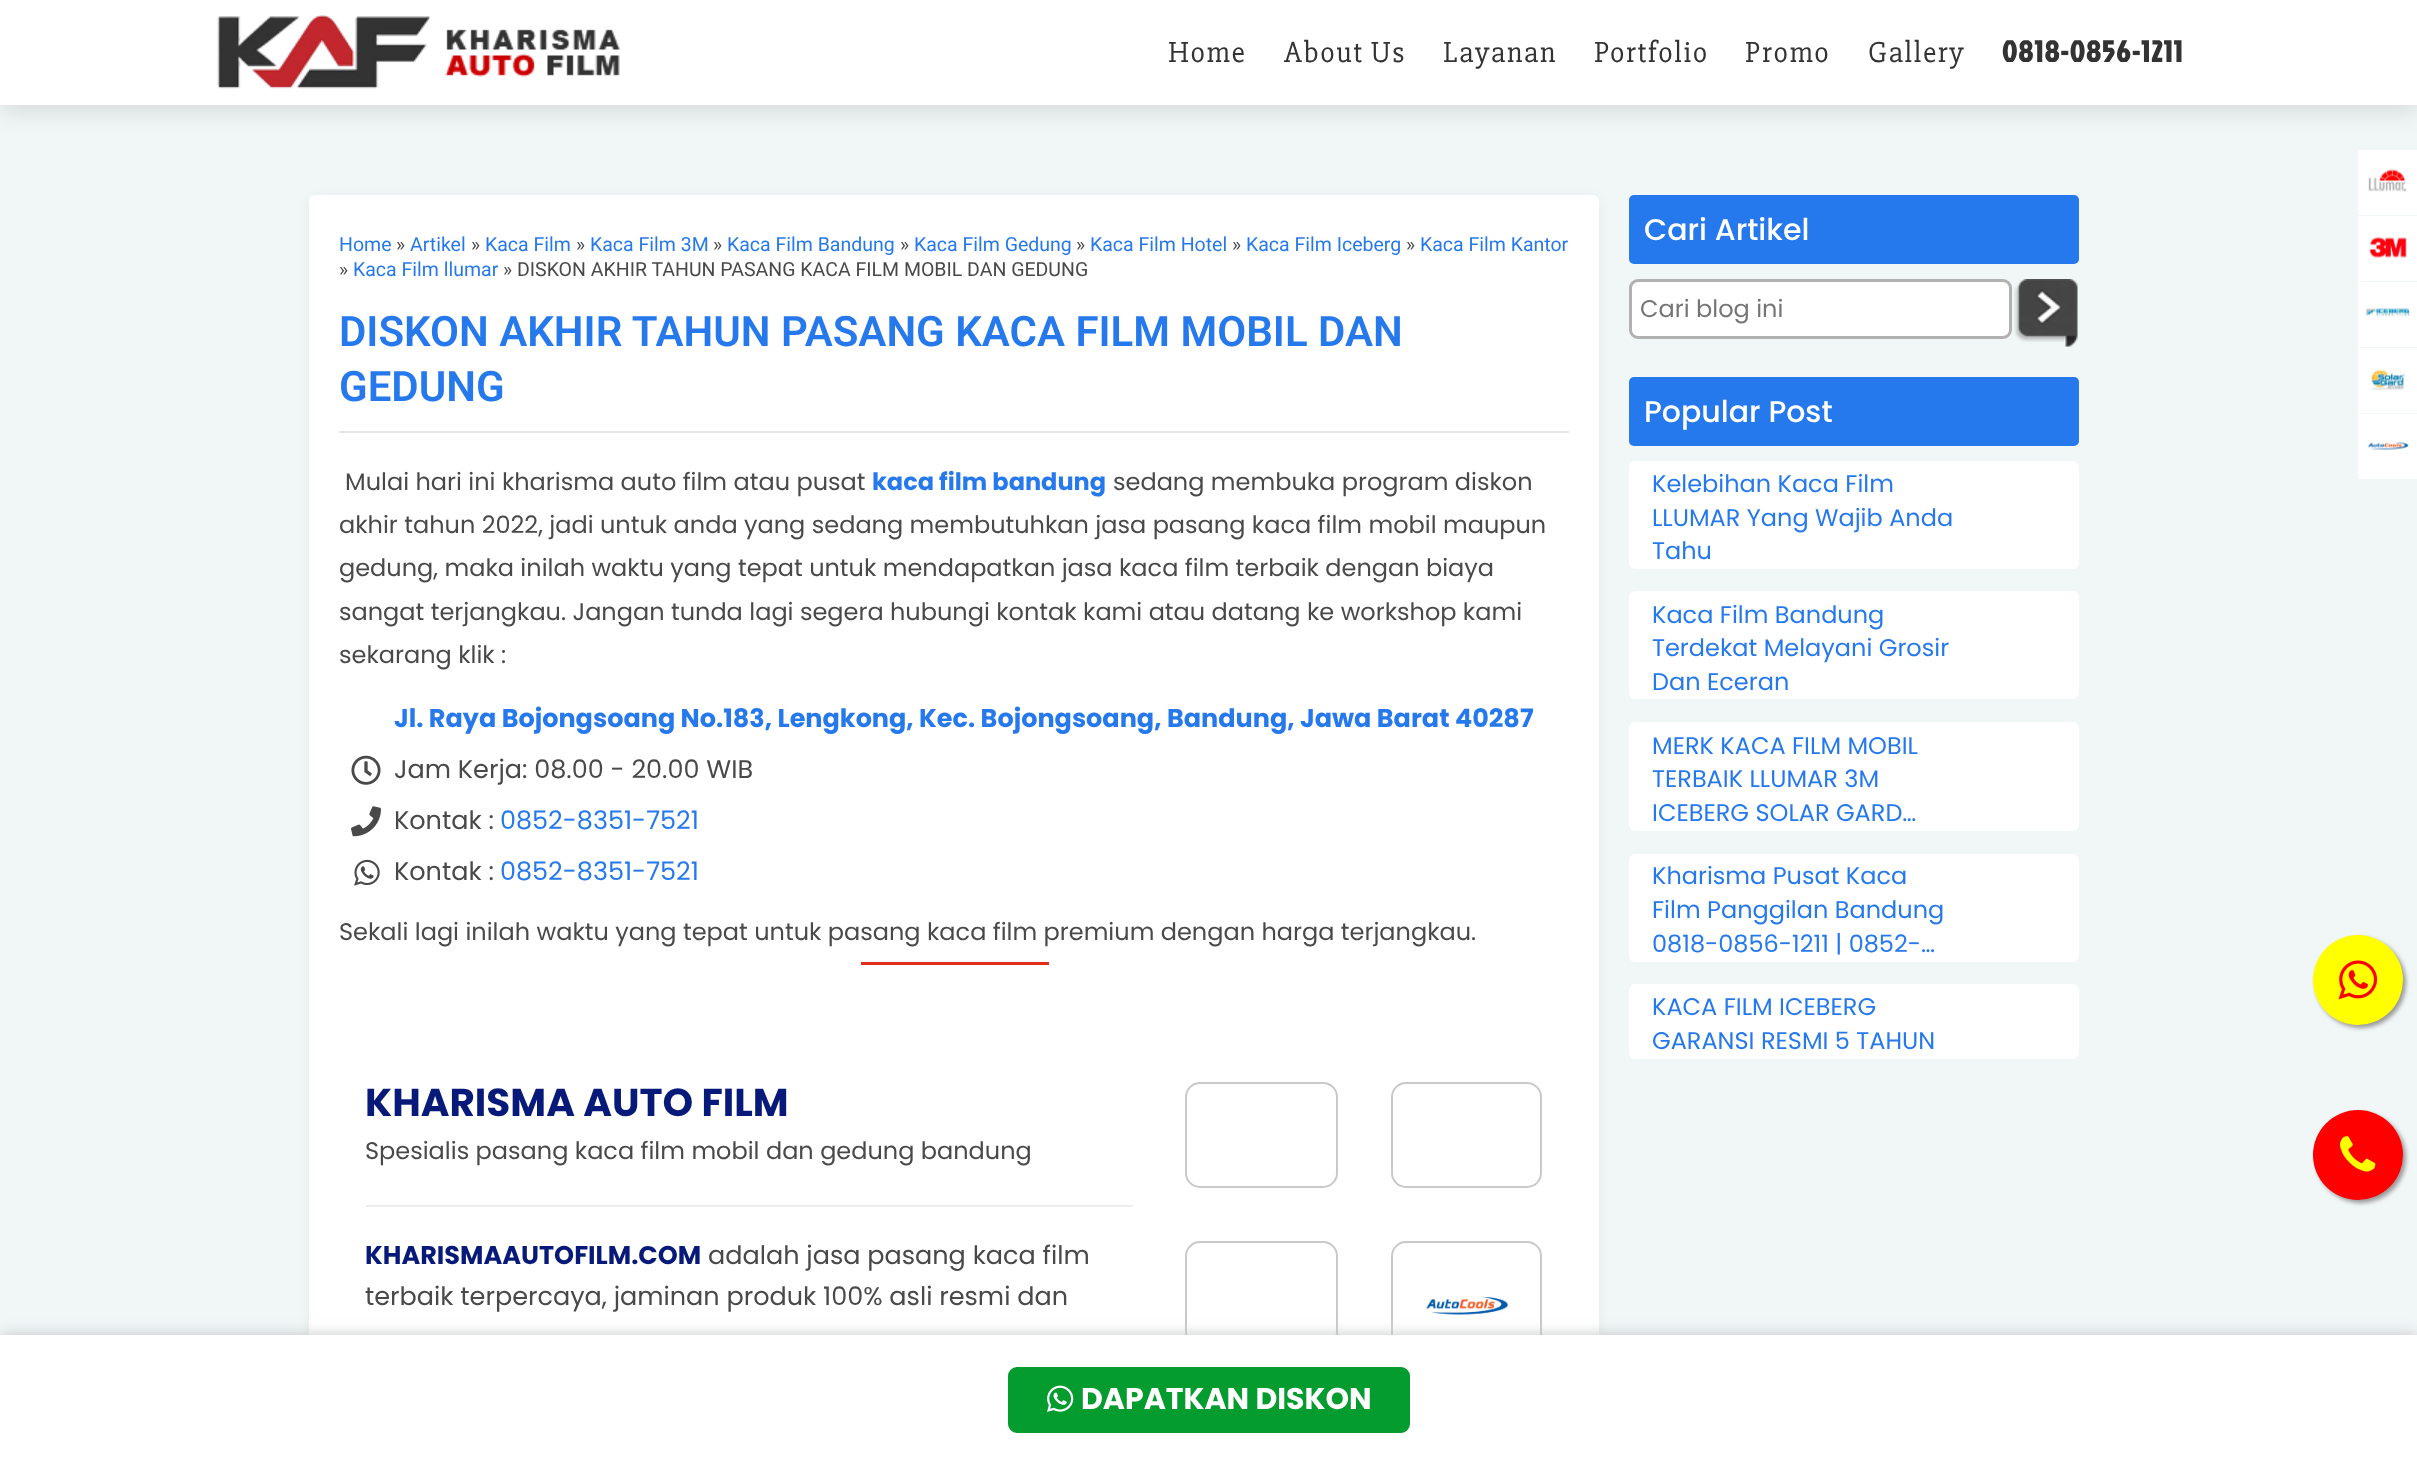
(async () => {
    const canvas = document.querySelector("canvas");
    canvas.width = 2417;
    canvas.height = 1462;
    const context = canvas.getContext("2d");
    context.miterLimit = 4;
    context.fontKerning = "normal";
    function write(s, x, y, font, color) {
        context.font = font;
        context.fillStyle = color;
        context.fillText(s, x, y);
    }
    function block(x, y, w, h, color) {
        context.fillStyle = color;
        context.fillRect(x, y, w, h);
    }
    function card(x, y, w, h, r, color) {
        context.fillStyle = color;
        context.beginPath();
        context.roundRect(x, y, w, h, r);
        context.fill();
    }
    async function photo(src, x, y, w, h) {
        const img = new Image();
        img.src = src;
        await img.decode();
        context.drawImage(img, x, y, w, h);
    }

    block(0, 0, 2417, 1462, "rgb(241, 246, 247)");
    context.fillStyle = "rgba(0, 0, 0, 0.1)";
    context.filter = "blur(11px)";
    context.beginPath();
    context.rect(0, 8, 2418, 105);
    context.fill();
    context.filter = "none";
    block(0, 0, 2417, 105, "rgb(255, 255, 255)");
    await photo("media/1.png", 217, 15, 403, 74);
    context.letterSpacing = "1.5px";
    write("Home", 1168, 62, "30px 'Slabo 27px'", "rgb(51, 51, 51)");
    write("About Us", 1284, 62, "30px 'Slabo 27px'", "rgb(51, 51, 51)");
    write("Layanan", 1443, 62, "30px 'Slabo 27px'", "rgb(51, 51, 51)");
    write("Portfolio", 1594, 62, "30px 'Slabo 27px'", "rgb(51, 51, 51)");
    write("Promo", 1745, 62, "30px 'Slabo 27px'", "rgb(51, 51, 51)");
    write("Gallery", 1868, 62, "30px 'Slabo 27px'", "rgb(51, 51, 51)");
    write("0818-0856-1211", 2002, 62, "bold 30px Jockey One", "rgb(51, 51, 51)");
    context.fillStyle = "rgba(0, 0, 0, 0.05)";
    context.filter = "blur(6px)";
    context.beginPath();
    context.roundRect(309, 198, 1290, 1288, 6);
    context.fill();
    context.filter = "none";
    card(309, 195, 1290, 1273, 6, "rgb(255, 255, 255)");
    context.letterSpacing = "0px";
    write("Home", 339, 251, "19.5px Roboto", "rgb(38, 121, 236)");
    write("»", 396, 251, "19.5px Roboto", "rgb(73, 73, 73)");
    write("Artikel", 410, 251, "19.5px Roboto", "rgb(38, 121, 236)");
    write("»", 471, 251, "19.5px Roboto", "rgb(73, 73, 73)");
    write("Kaca Film", 485, 251, "19.5px Roboto", "rgb(38, 121, 236)");
    write("»", 576, 251, "19.5px Roboto", "rgb(73, 73, 73)");
    write("Kaca Film 3M", 590, 251, "19.5px Roboto", "rgb(38, 121, 236)");
    write("»", 713, 251, "19.5px Roboto", "rgb(73, 73, 73)");
    write("Kaca Film Bandung", 727, 251, "19.5px Roboto", "rgb(38, 121, 236)");
    write("»", 900, 251, "19.5px Roboto", "rgb(73, 73, 73)");
    write("Kaca Film Gedung", 914, 251, "19.5px Roboto", "rgb(38, 121, 236)");
    write("»", 1076, 251, "19.5px Roboto", "rgb(73, 73, 73)");
    write("Kaca Film Hotel", 1090, 251, "19.5px Roboto", "rgb(38, 121, 236)");
    write("»", 1232, 251, "19.5px Roboto", "rgb(73, 73, 73)");
    write("Kaca Film Iceberg", 1246, 251, "19.5px Roboto", "rgb(38, 121, 236)");
    write("»", 1406, 251, "19.5px Roboto", "rgb(73, 73, 73)");
    write("Kaca Film Kantor", 1420, 251, "19.5px Roboto", "rgb(38, 121, 236)");
    write("»", 339, 276, "19.5px Roboto", "rgb(73, 73, 73)");
    write("Kaca Film llumar", 353, 276, "19.5px Roboto", "rgb(38, 121, 236)");
    write("» DISKON AKHIR TAHUN PASANG KACA FILM MOBIL DAN GEDUNG", 503, 276, "19.5px Roboto", "rgb(73, 73, 73)");
    block(339, 431, 1230, 2, "rgb(230, 230, 230)");
    write("DISKON AKHIR TAHUN PASANG KACA FILM MOBIL DAN", 339, 346, "600 42px Roboto", "rgb(38, 121, 236)");
    write("GEDUNG", 339, 401, "600 42px Roboto", "rgb(38, 121, 236)");
    write("Mulai hari ini kharisma auto film atau pusat", 345, 490, "24px Poppins", "rgb(73, 73, 73)");
    write("kaca film bandung", 872, 490, "bold 24px Poppins", "rgb(38, 121, 236)");
    write("sedang membuka program diskon", 1113, 490, "24px Poppins", "rgb(73, 73, 73)");
    write("akhir tahun 2022, jadi untuk anda yang sedang membutuhkan jasa pasang kaca film mobil maupun", 339, 533, "24px Poppins", "rgb(73, 73, 73)");
    write("gedung, maka inilah waktu yang tepat untuk mendapatkan jasa kaca film terbaik dengan biaya", 339, 576, "24px Poppins", "rgb(73, 73, 73)");
    write("sangat terjangkau. Jangan tunda lagi segera hubungi kontak kami atau datang ke workshop kami", 339, 620, "24px Poppins", "rgb(73, 73, 73)");
    write("sekarang klik :", 339, 663, "24px Poppins", "rgb(73, 73, 73)");
    write("Jl. Raya Bojongsoang No.183, Lengkong, Kec. Bojongsoang, Bandung, Jawa Barat 40287", 394, 727, "bold 25.5px Poppins", "rgb(38, 121, 236)");
    await photo("media/2.png", 351, 755, 30, 30);
    write("Jam Kerja: 08.00 - 20.00 WIB", 394, 778, "25.5px Poppins", "rgb(73, 73, 73)");
    await photo("media/3.png", 351, 806, 30, 31);
    write("Kontak :", 394, 829, "25.5px Poppins", "rgb(73, 73, 73)");
    write("0852-8351-7521", 500, 829, "25.5px Poppins", "rgb(38, 121, 236)");
    await photo("media/4.png", 354, 859, 26, 27);
    write("Kontak :", 394, 880, "25.5px Poppins", "rgb(73, 73, 73)");
    write("0852-8351-7521", 500, 880, "25.5px Poppins", "rgb(38, 121, 236)");
    write("Sekali lagi inilah waktu yang tepat untuk pasang kaca film premium dengan harga terjangkau.", 339, 940, "24px Poppins", "rgb(73, 73, 73)");
    block(861, 962, 188, 3, "rgb(225, 45, 26)");
    write("KHARISMA AUTO FILM", 365, 1116, "bold 39px Poppins", "rgb(8, 26, 121)");
    write("Spesialis pasang kaca film mobil dan gedung bandung", 365, 1159, "24px Poppins", "rgb(73, 73, 73)");
    block(366, 1205, 767, 2, "rgb(238, 238, 238)");
    write("KHARISMAAUTOFILM.COM", 365, 1264, "bold 25.5px Poppins", "rgb(8, 26, 121)");
    write("adalah jasa pasang kaca film", 708, 1264, "25.5px Poppins", "rgb(73, 73, 73)");
    write("terbaik terpercaya, jaminan produk 100% asli resmi dan", 365, 1305, "25.5px Poppins", "rgb(73, 73, 73)");
    context.beginPath();
    context.roundRect(1186, 1083, 151, 104, 14);
    context.strokeStyle = "rgb(201, 201, 201)";
    context.lineWidth = 2;
    context.stroke();
    context.beginPath();
    context.roundRect(1392, 1083, 149, 104, 14);
    context.stroke();
    context.beginPath();
    context.roundRect(1186, 1242, 151, 104, 14);
    context.stroke();
    context.beginPath();
    context.roundRect(1392, 1242, 149, 127, 14);
    context.stroke();
    await photo("media/5.png", 1426, 1296, 82, 19);
    card(1629, 195, 450, 69, 5, "rgb(38, 121, 236)");
    write("Cari Artikel", 1644, 240, "500 30px Poppins", "rgb(255, 255, 255)");
    context.beginPath();
    context.roundRect(1630.5, 280.5, 380, 57, 7.5);
    context.fill();
    context.strokeStyle = "rgb(177, 177, 177)";
    context.lineWidth = 3;
    context.stroke();
    write("Cari blog ini", 1640, 317, "24px Poppins", "rgb(117, 117, 117)");
    await photo("media/6.png", 2014, 279, 64, 68);
    card(1629, 377, 450, 69, 5, "rgb(38, 121, 236)");
    write("Popular Post", 1644, 422, "500 30px Poppins", "rgb(255, 255, 255)");
    card(1629, 461, 450, 108, 6, "rgb(255, 255, 255)");
    write("Kelebihan Kaca Film", 1652, 492, "24px Poppins", "rgb(38, 121, 236)");
    write("LLUMAR Yang Wajib Anda", 1652, 526, "24px Poppins", "rgb(38, 121, 236)");
    write("Tahu", 1652, 559, "24px Poppins", "rgb(38, 121, 236)");
    card(1629, 591, 450, 108, 6, "rgb(255, 255, 255)");
    write("Kaca Film Bandung", 1652, 623, "24px Poppins", "rgb(38, 121, 236)");
    write("Terdekat Melayani Grosir", 1652, 656, "24px Poppins", "rgb(38, 121, 236)");
    write("Dan Eceran", 1652, 690, "24px Poppins", "rgb(38, 121, 236)");
    card(1629, 722, 450, 109, 6, "rgb(255, 255, 255)");
    write("MERK KACA FILM MOBIL", 1652, 754, "24px Poppins", "rgb(38, 121, 236)");
    write("TERBAIK LLUMAR 3M", 1652, 787, "24px Poppins", "rgb(38, 121, 236)");
    write("ICEBERG SOLAR GARD…", 1652, 821, "24px Poppins", "rgb(38, 121, 236)");
    card(1629, 854, 450, 108, 6, "rgb(255, 255, 255)");
    write("Kharisma Pusat Kaca", 1652, 884, "24px Poppins", "rgb(38, 121, 236)");
    write("Film Panggilan Bandung", 1652, 918, "24px Poppins", "rgb(38, 121, 236)");
    write("0818-0856-1211 | 0852-…", 1652, 952, "24px Poppins", "rgb(38, 121, 236)");
    card(1629, 984, 450, 75, 6, "rgb(255, 255, 255)");
    write("KACA FILM ICEBERG", 1652, 1015, "24px Poppins", "rgb(38, 121, 236)");
    write("GARANSI RESMI 5 TAHUN", 1652, 1049, "24px Poppins", "rgb(38, 121, 236)");
    block(2358, 150, 59, 65, "rgb(255, 255, 255)");
    await photo("media/7.png", 2368, 169, 39, 23);
    block(2358, 216, 59, 65, "rgb(255, 255, 255)");
    await photo("media/8.png", 2369, 237, 38, 21);
    block(2358, 282, 59, 65, "rgb(255, 255, 255)");
    await photo("media/9.png", 2366, 308, 44, 10);
    block(2358, 348, 59, 65, "rgb(255, 255, 255)");
    await photo("media/10.png", 2371, 369, 34, 21);
    block(2358, 414, 59, 65, "rgb(255, 255, 255)");
    await photo("media/11.png", 2367, 441, 42, 9);
    context.fillStyle = "rgb(153, 153, 153)";
    context.filter = "blur(2px)";
    context.beginPath();
    context.roundRect(2316, 938, 90, 90, 45);
    context.fill();
    context.filter = "none";
    context.fillStyle = "rgb(255, 255, 0)";
    context.beginPath();
    context.arc(2358, 980, 45, 0, Math.PI * 2);
    context.fill();
    await photo("media/12.png", 2338, 960, 40, 40);
    context.fillStyle = "rgb(153, 153, 153)";
    context.filter = "blur(2px)";
    context.beginPath();
    context.roundRect(2316, 1113, 90, 90, 45);
    context.fill();
    context.filter = "none";
    context.fillStyle = "rgb(255, 0, 0)";
    context.beginPath();
    context.arc(2358, 1155, 45, 0, Math.PI * 2);
    context.fill();
    await photo("media/13.png", 2340, 1136, 36, 36);
    context.fillStyle = "rgb(197, 198, 199)";
    context.filter = "blur(7.5px)";
    context.beginPath();
    context.rect(0, 1335, 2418, 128);
    context.fill();
    context.filter = "none";
    block(0, 1335, 2417, 127, "rgb(255, 255, 255)");
    context.fillStyle = "rgb(4, 156, 47)";
    context.beginPath();
    context.roundRect(1009.5, 1368.5, 399, 63, 7.5);
    context.fill();
    context.strokeStyle = "rgb(4, 156, 47)";
    context.stroke();
    await photo("media/14.png", 1047, 1385, 27, 27);
    write("DAPATKAN DISKON", 1081, 1409, "bold 30px Poppins", "rgb(255, 255, 255)");
})();
